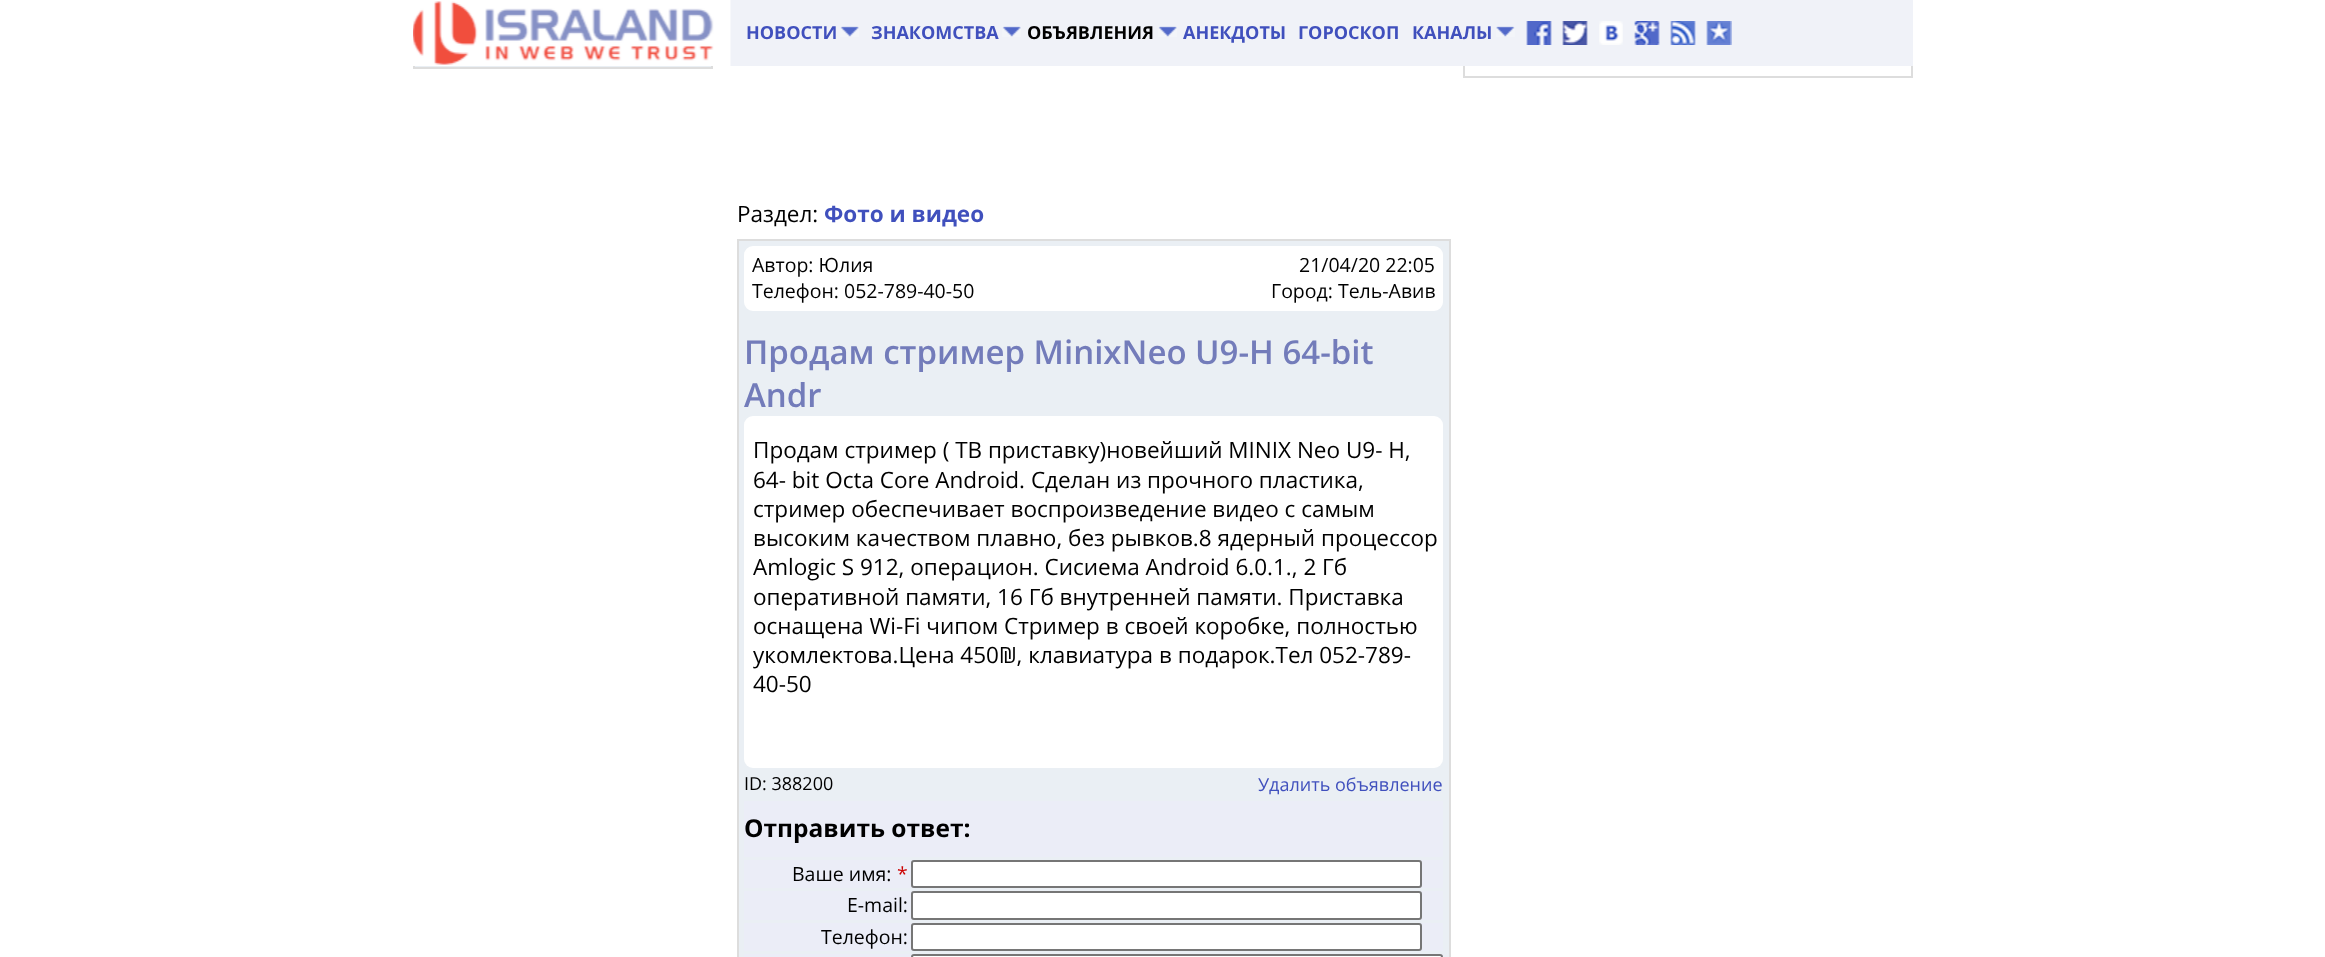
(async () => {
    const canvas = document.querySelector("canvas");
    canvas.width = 2325;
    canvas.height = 957;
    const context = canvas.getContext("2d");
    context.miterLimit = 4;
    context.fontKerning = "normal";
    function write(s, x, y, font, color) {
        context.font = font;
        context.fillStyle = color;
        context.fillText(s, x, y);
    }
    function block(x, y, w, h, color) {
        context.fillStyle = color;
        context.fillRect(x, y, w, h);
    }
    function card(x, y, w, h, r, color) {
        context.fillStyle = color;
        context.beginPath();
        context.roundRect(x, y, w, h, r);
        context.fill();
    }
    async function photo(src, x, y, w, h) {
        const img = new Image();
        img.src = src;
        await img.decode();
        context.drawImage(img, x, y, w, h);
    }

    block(0, 0, 2325, 957, "rgb(255, 255, 255)");
    context.strokeStyle = "rgb(221, 221, 221)";
    context.lineWidth = 2;
    context.strokeRect(1464, 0, 448, 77);
    block(730, 0, 1183, 66, "rgb(240, 242, 248)");
    block(415, 66, 296, 1, "rgb(234, 239, 244)");
    context.strokeRect(414, -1, 298, 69);
    await photo("media/1.png", 413, 0, 318, 66);
    write("НОВОСТИ", 746, 39, "bold 18px Open Sans", "rgb(64, 80, 189)");
    await photo("media/2.png", 840, 26, 19, 11);
    write("ЗНАКОМСТВА", 871, 39, "bold 18px Open Sans", "rgb(64, 80, 189)");
    await photo("media/2.png", 1002, 26, 19, 11);
    write("ОБЪЯВЛЕНИЯ", 1027, 39, "bold 18px Open Sans", "rgb(0, 0, 0)");
    await photo("media/2.png", 1158, 26, 19, 11);
    write("АНЕКДОТЫ", 1183, 39, "bold 18px Open Sans", "rgb(64, 80, 189)");
    write("ГОРОСКОП", 1298, 39, "bold 18px Open Sans", "rgb(64, 80, 189)");
    write("КАНАЛЫ", 1412, 39, "bold 18px Open Sans", "rgb(64, 80, 189)");
    await photo("media/3.png", 1496, 26, 19, 11);
    await photo("media/4.png", 1526, 21, 26, 24);
    await photo("media/5.png", 1562, 21, 26, 24);
    await photo("media/6.png", 1599, 21, 24, 24);
    await photo("media/7.png", 1634, 21, 26, 24);
    await photo("media/8.png", 1670, 21, 26, 24);
    await photo("media/9.png", 1706, 21, 26, 24);
    write("Раздел:", 737, 222, "22.5px Open Sans", "rgb(0, 0, 0)");
    write("Фото и видео", 824, 222, "bold 22.5px Open Sans", "rgb(64, 80, 189)");
    context.fillStyle = "rgb(234, 239, 244)";
    context.beginPath();
    context.rect(738, 240, 712, 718);
    context.fill();
    context.stroke();
    context.fillStyle = "rgb(255, 255, 255)";
    context.beginPath();
    context.roundRect(745, 247, 697, 63, 8);
    context.fill();
    context.strokeStyle = "rgb(255, 255, 255)";
    context.stroke();
    write("Автор: Юлия", 752, 272, "19.5px Open Sans", "rgb(0, 0, 0)");
    write("21/04/20 22:05", 1299, 272, "19.5px Open Sans", "rgb(0, 0, 0)");
    write("Город: Тель-Авив", 1271, 298, "19.5px Open Sans", "rgb(0, 0, 0)");
    write("Телефон: 052-789-40-50", 752, 298, "19.5px Open Sans", "rgb(0, 0, 0)");
    write("Продам стример MinixNeo U9-H 64-bit", 744, 364, "600 33px Open Sans", "rgb(115, 124, 186)");
    write("Andr", 744, 407, "600 33px Open Sans", "rgb(115, 124, 186)");
    card(744, 416, 699, 352, 9, "rgb(255, 255, 255)");
    write("Продам стример ( ТВ приставку)новейший MINIX Neo U9- H,", 753, 458, "22.5px Open Sans", "rgb(0, 0, 0)");
    write("64- bit Octa Core Android. Сделан из прочного пластика,", 753, 488, "22.5px Open Sans", "rgb(0, 0, 0)");
    write("стример обеспечивает воспроизведение видео с самым", 753, 517, "22.5px Open Sans", "rgb(0, 0, 0)");
    write("высоким качеством плавно, без рывков.8 ядерный процессор", 753, 546, "22.5px Open Sans", "rgb(0, 0, 0)");
    write("Аmlogic S 912, операцион. Сисиема Android 6.0.1., 2 Гб", 753, 575, "22.5px Open Sans", "rgb(0, 0, 0)");
    write("оперативной памяти, 16 Гб внутренней памяти. Приставка", 753, 605, "22.5px Open Sans", "rgb(0, 0, 0)");
    write("оснащена Wi-Fi чипом Стример в своей коробке, полностью", 753, 634, "22.5px Open Sans", "rgb(0, 0, 0)");
    write("укомлектова.Цена 450₪, клавиатура в подарок.Тел 052-789-", 753, 663, "22.5px Open Sans", "rgb(0, 0, 0)");
    write("40-50", 753, 692, "22.5px Open Sans", "rgb(0, 0, 0)");
    write("ID: 388200", 744, 790, "18px Open Sans", "rgb(0, 0, 0)");
    write("Удалить объявление", 1258, 791, "18px Open Sans", "rgb(64, 80, 189)");
    block(744, 801, 699, 56, "rgb(235, 237, 247)");
    write("Отправить ответ:", 744, 837, "bold 24.5px Open Sans", "rgb(0, 0, 0)");
    block(744, 860, 699, 28, "rgb(235, 237, 247)");
    write("Ваше имя:", 792, 881, "19.5px Open Sans", "rgb(0, 0, 0)");
    write("*", 897, 881, "19.5px Open Sans", "rgb(204, 0, 0)");
    context.fillStyle = "rgb(255, 255, 255)";
    context.beginPath();
    context.roundRect(912, 861, 509, 26, 2);
    context.fill();
    context.strokeStyle = "rgb(118, 118, 118)";
    context.stroke();
    block(744, 891, 699, 29, "rgb(235, 237, 247)");
    write("E-mail:", 847, 912, "19.5px Open Sans", "rgb(0, 0, 0)");
    context.fillStyle = "rgb(255, 255, 255)";
    context.beginPath();
    context.roundRect(912, 892, 509, 27, 2);
    context.fill();
    context.stroke();
    block(744, 923, 699, 28, "rgb(235, 237, 247)");
    write("Телефон:", 821, 944, "19.5px Open Sans", "rgb(0, 0, 0)");
    context.fillStyle = "rgb(255, 255, 255)";
    context.beginPath();
    context.roundRect(912, 924, 509, 26, 2);
    context.fill();
    context.stroke();
    block(744, 954, 699, 3, "rgb(235, 237, 247)");
    context.fillStyle = "rgb(255, 255, 255)";
    context.beginPath();
    context.roundRect(912, 955, 530, 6, 2);
    context.fill();
    context.stroke();
})();
